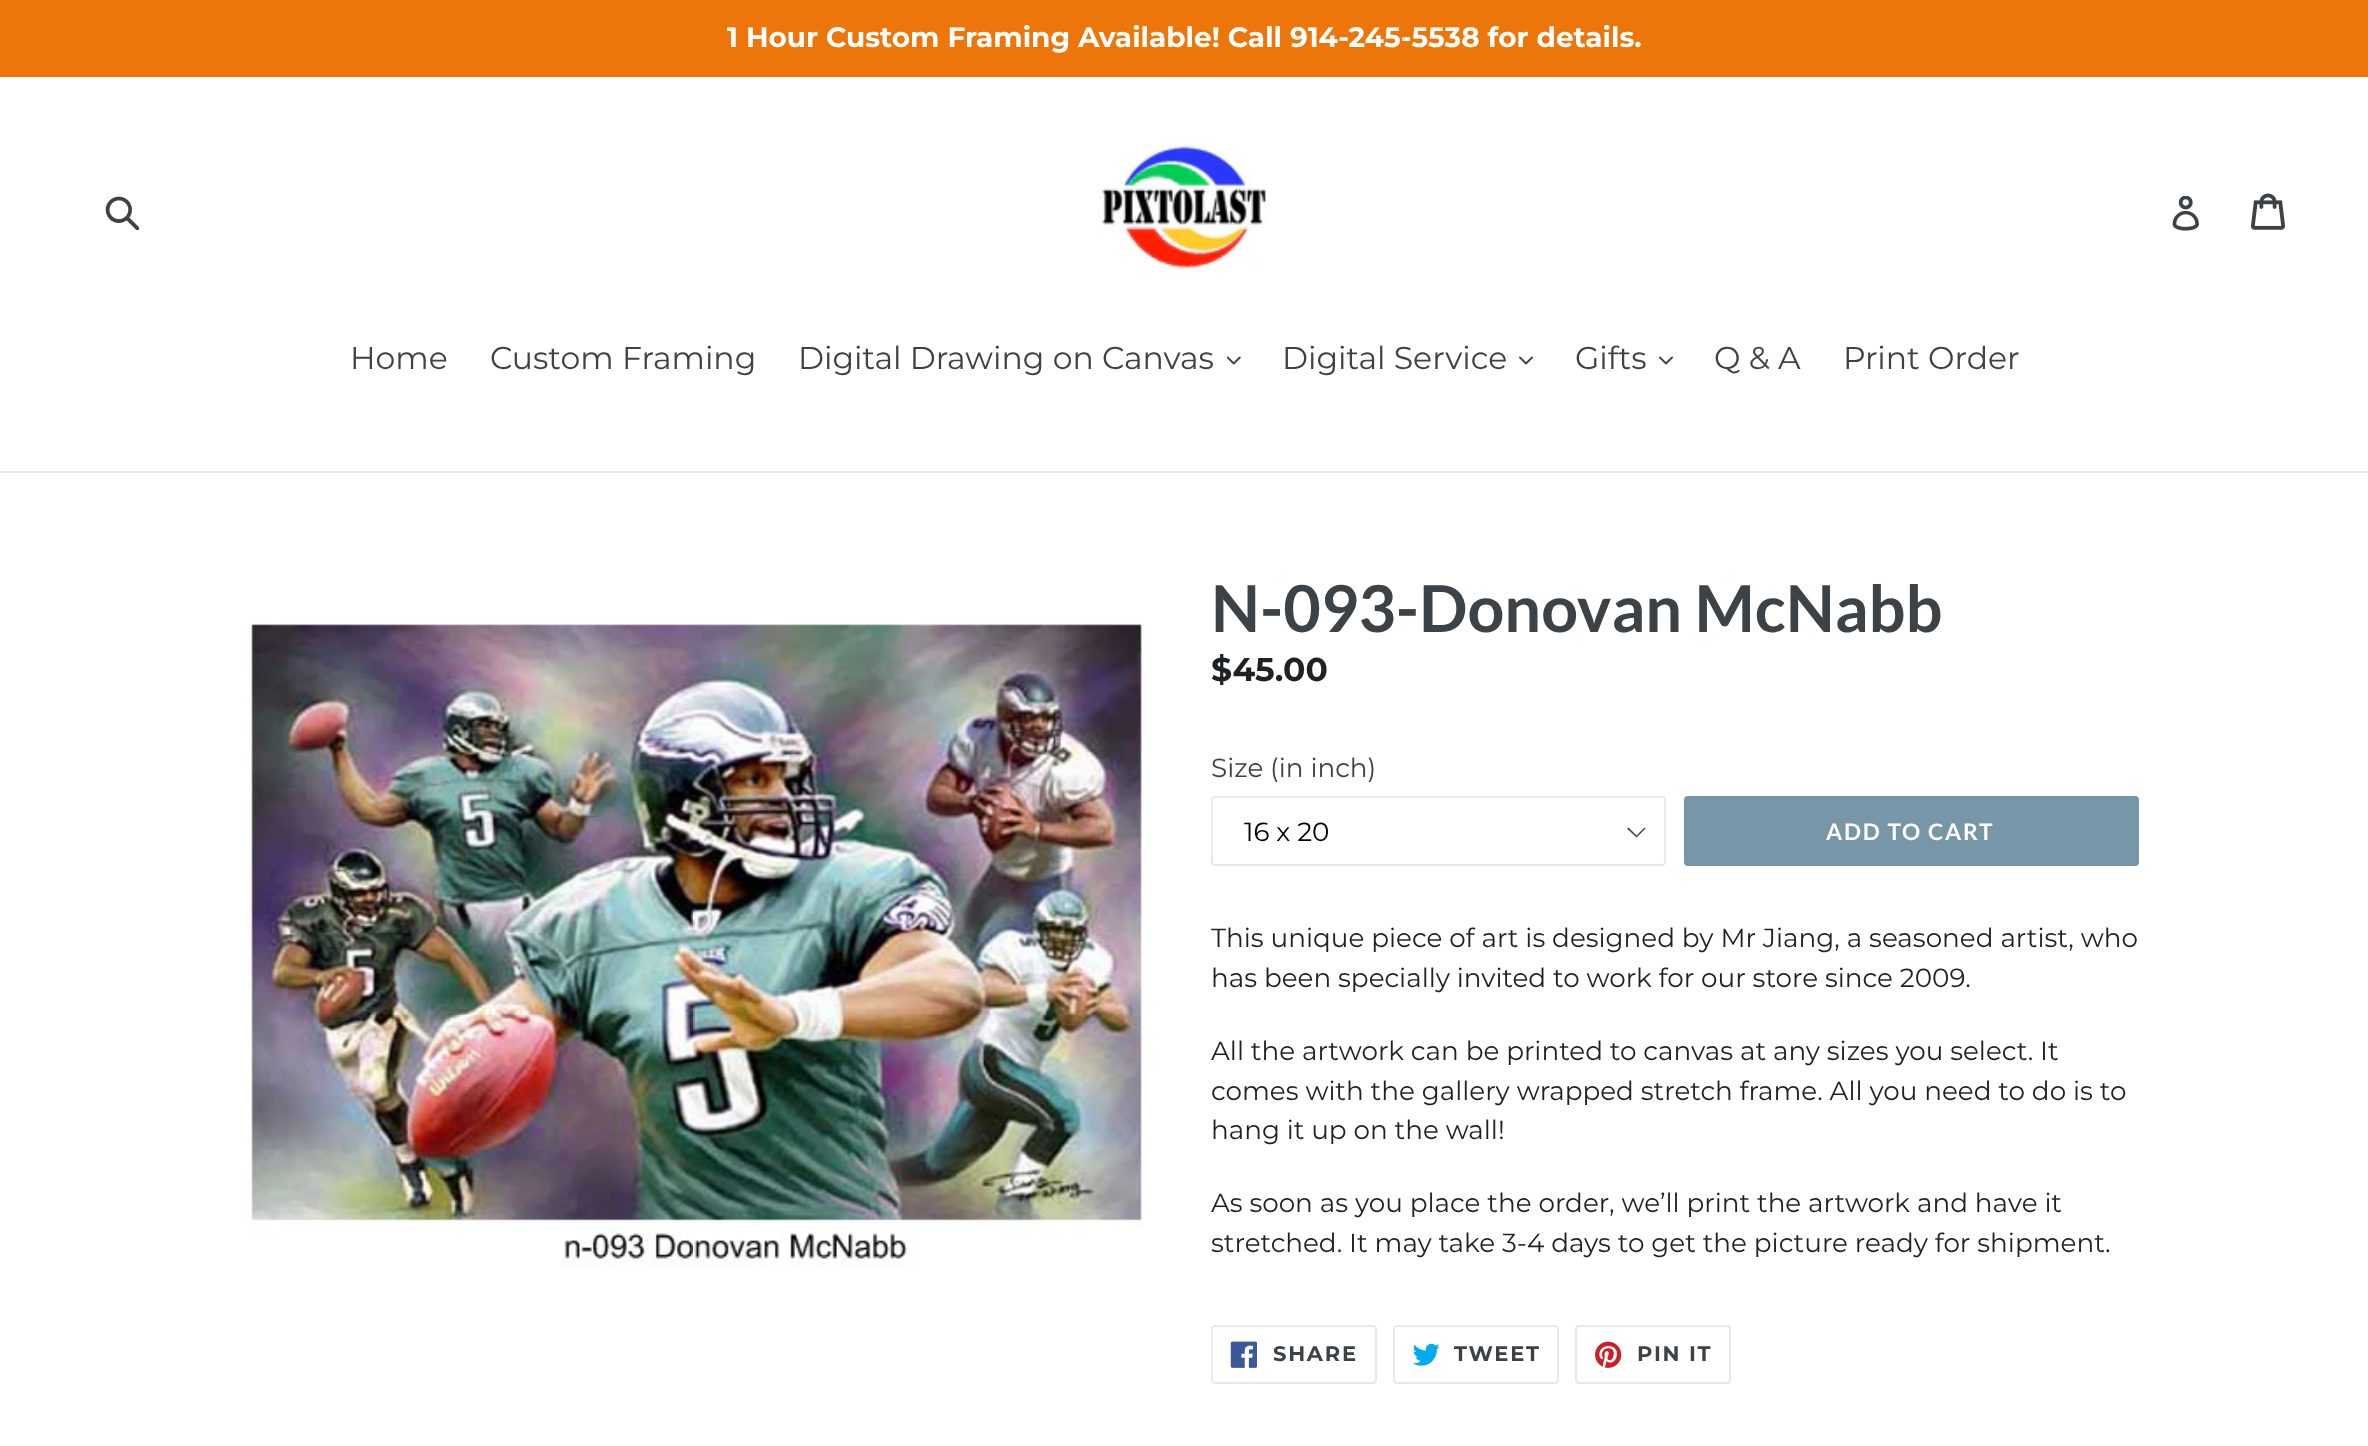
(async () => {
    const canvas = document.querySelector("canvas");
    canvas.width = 2368;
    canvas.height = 1446;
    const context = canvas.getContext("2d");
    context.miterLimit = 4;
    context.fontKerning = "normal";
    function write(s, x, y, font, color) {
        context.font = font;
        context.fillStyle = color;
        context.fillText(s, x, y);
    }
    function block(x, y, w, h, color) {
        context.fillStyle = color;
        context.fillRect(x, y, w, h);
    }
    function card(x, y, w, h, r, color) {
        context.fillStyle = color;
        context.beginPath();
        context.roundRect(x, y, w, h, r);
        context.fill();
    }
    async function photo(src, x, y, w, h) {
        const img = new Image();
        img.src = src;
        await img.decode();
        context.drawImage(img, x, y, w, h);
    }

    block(0, 0, 2368, 1446, "rgb(255, 255, 255)");
    block(0, 0, 2368, 77, "rgb(236, 118, 10)");
    write("1 Hour Custom Framing Available! Call 914-245-5538 for details.", 727, 47, "bold 28px Montserrat", "rgb(255, 255, 255)");
    await photo("media/1.png", 105, 196, 35, 35);
    await photo("media/2.png", 1099, 143, 167, 127);
    await photo("media/3.png", 2172, 196, 27, 35);
    await photo("media/4.png", 2251, 193, 34, 37);
    block(0, 471, 2368, 2, "rgb(232, 233, 235)");
    write("Home", 350, 369, "31.5px Montserrat", "rgb(61, 66, 70)");
    write("Custom Framing", 490, 369, "31.5px Montserrat", "rgb(61, 66, 70)");
    write("Digital Drawing on Canvas", 798, 369, "31.5px Montserrat", "rgb(61, 66, 70)");
    await photo("media/5.png", 1227, 356, 14, 9);
    write("Digital Service", 1282, 369, "31.5px Montserrat", "rgb(61, 66, 70)");
    await photo("media/6.png", 1519, 356, 14, 9);
    write("Gifts", 1575, 369, "31.5px Montserrat", "rgb(61, 66, 70)");
    await photo("media/6.png", 1659, 356, 14, 9);
    write("Q & A", 1714, 369, "31.5px Montserrat", "rgb(61, 66, 70)");
    write("Print Order", 1843, 369, "31.5px Montserrat", "rgb(61, 66, 70)");
    await photo("media/7.png", 247, 623, 896, 645);
    write("N-093-Donovan McNabb", 1211, 632, "bold 64.75px Lato", "rgb(61, 66, 70)");
    write("$45.00", 1211, 681, "bold 33px Montserrat", "rgb(30, 34, 36)");
    write("Size (in inch)", 1211, 777, "26.25px Montserrat", "rgb(61, 66, 70)");
    context.beginPath();
    context.moveTo(1636.5, 837.5);
    context.lineTo(1627, 828.5);
    context.lineTo(1628.5, 827.5);
    context.lineTo(1636.5, 835.5);
    context.lineTo(1644.5, 827.5);
    context.lineTo(1645.5, 828.5);
    context.closePath();
    context.fill();
    context.beginPath();
    context.roundRect(1212, 797, 453, 68, 3);
    context.strokeStyle = "rgb(232, 233, 235)";
    context.lineWidth = 2;
    context.stroke();
    write("16 x 20", 1244, 841, "26.25px Montserrat", "rgb(0, 0, 0)");
    card(1684, 796, 455, 70, 4, "rgb(119, 150, 168)");
    context.letterSpacing = "1.75px";
    write("ADD TO CART", 1826, 840, "bold 22.75px Lato", "rgb(255, 255, 255)");
    context.letterSpacing = "0px";
    write("This unique piece of art is designed by Mr Jiang, a seasoned artist, who", 1211, 947, "26.25px Montserrat", "rgb(30, 34, 36)");
    write("has been specially invited to work for our store since 2009.", 1211, 987, "26.25px Montserrat", "rgb(30, 34, 36)");
    write("All the artwork can be printed to canvas at any sizes you select. It", 1211, 1060, "26.25px Montserrat", "rgb(30, 34, 36)");
    write("comes with the gallery wrapped stretch frame. All you need to do is to", 1211, 1100, "26.25px Montserrat", "rgb(30, 34, 36)");
    write("hang it up on the wall!", 1211, 1139, "26.25px Montserrat", "rgb(30, 34, 36)");
    write("As soon as you place the order, we’ll print the artwork and have it", 1211, 1212, "26.25px Montserrat", "rgb(30, 34, 36)");
    write("stretched. It may take 3-4 days to get the picture ready for shipment.", 1211, 1252, "26.25px Montserrat", "rgb(30, 34, 36)");
    context.beginPath();
    context.roundRect(1212, 1326, 164, 57, 3);
    context.stroke();
    await photo("media/8.png", 1230, 1341, 27, 27);
    context.letterSpacing = "1.75px";
    write("SHARE", 1273, 1361, "bold 21px Montserrat", "rgb(61, 66, 70)");
    context.beginPath();
    context.roundRect(1394, 1326, 164, 57, 3);
    context.stroke();
    await photo("media/9.png", 1412, 1343, 28, 23);
    write("TWEET", 1454, 1361, "bold 21px Montserrat", "rgb(61, 66, 70)");
    context.beginPath();
    context.roundRect(1576, 1326, 154, 57, 3);
    context.stroke();
    await photo("media/10.png", 1595, 1341, 27, 27);
    write("PIN IT", 1637, 1361, "bold 21px Montserrat", "rgb(61, 66, 70)");
})();
